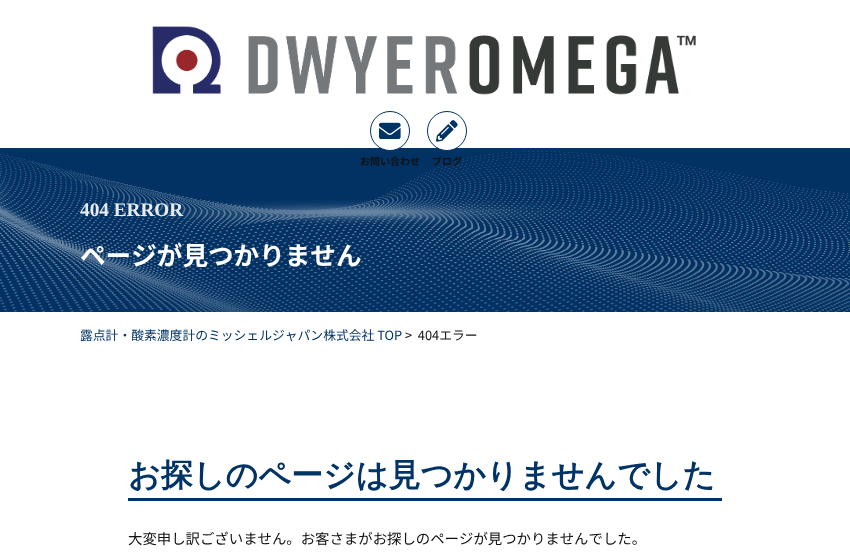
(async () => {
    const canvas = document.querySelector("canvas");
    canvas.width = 850;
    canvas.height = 552;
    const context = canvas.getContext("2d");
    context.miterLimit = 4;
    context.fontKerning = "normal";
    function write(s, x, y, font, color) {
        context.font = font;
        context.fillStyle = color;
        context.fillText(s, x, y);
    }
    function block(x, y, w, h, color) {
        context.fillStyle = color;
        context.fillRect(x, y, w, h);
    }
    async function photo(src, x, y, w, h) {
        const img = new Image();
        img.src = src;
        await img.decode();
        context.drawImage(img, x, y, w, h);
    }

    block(0, 0, 850, 552, "rgb(255, 255, 255)");
    await photo("media/1.png", 152, 26, 544, 69);
    block(0, 148, 850, 3, "rgb(0, 51, 102)");
    context.fillStyle = "rgb(255, 255, 255)";
    context.beginPath();
    context.arc(390, 131, 19.5, 0, Math.PI * 2);
    context.fill();
    context.strokeStyle = "rgb(0, 51, 102)";
    context.stroke();
    await photo("media/2.png", 379, 122, 22, 17);
    await photo("media/4.png", 0, 151, 850, 161);
    write("お問い合わせ", 360, 165, "bold 10px Noto Sans JP", "rgb(17, 17, 17)");
    context.fillStyle = "rgb(255, 255, 255)";
    context.beginPath();
    context.arc(447, 131, 19.5, 0, Math.PI * 2);
    context.fill();
    context.stroke();
    await photo("media/3.png", 436, 120, 22, 22);
    write("ブログ", 432, 165, "bold 10px Noto Sans JP", "rgb(17, 17, 17)");
    write("404 ERROR", 80, 216, "bold 19.25px Liberation Serif", "rgb(231, 236, 240)");
    write("ページが見つかりません", 80, 265, "bold 25.6px Noto Sans JP", "rgb(255, 255, 255)");
    write("露点計・酸素濃度計のミッシェルジャパン株式会社 TOP", 80, 340, "12.8px Noto Sans JP", "rgb(0, 51, 102)");
    write(">  404エラー", 405, 340, "12.8px Noto Sans JP", "rgb(17, 17, 17)");
    block(128, 498, 594, 3, "rgb(0, 51, 102)");
    write("お探しのページは見つかりませんでした", 128, 486, "bold 32px WenQuanYi Zen Hei", "rgb(0, 51, 102)");
    write("大変申し訳ございません。お客さまがお探しのページが見つかりませんでした。", 128, 544, "14.4px Noto Sans JP", "rgb(17, 17, 17)");
})();
